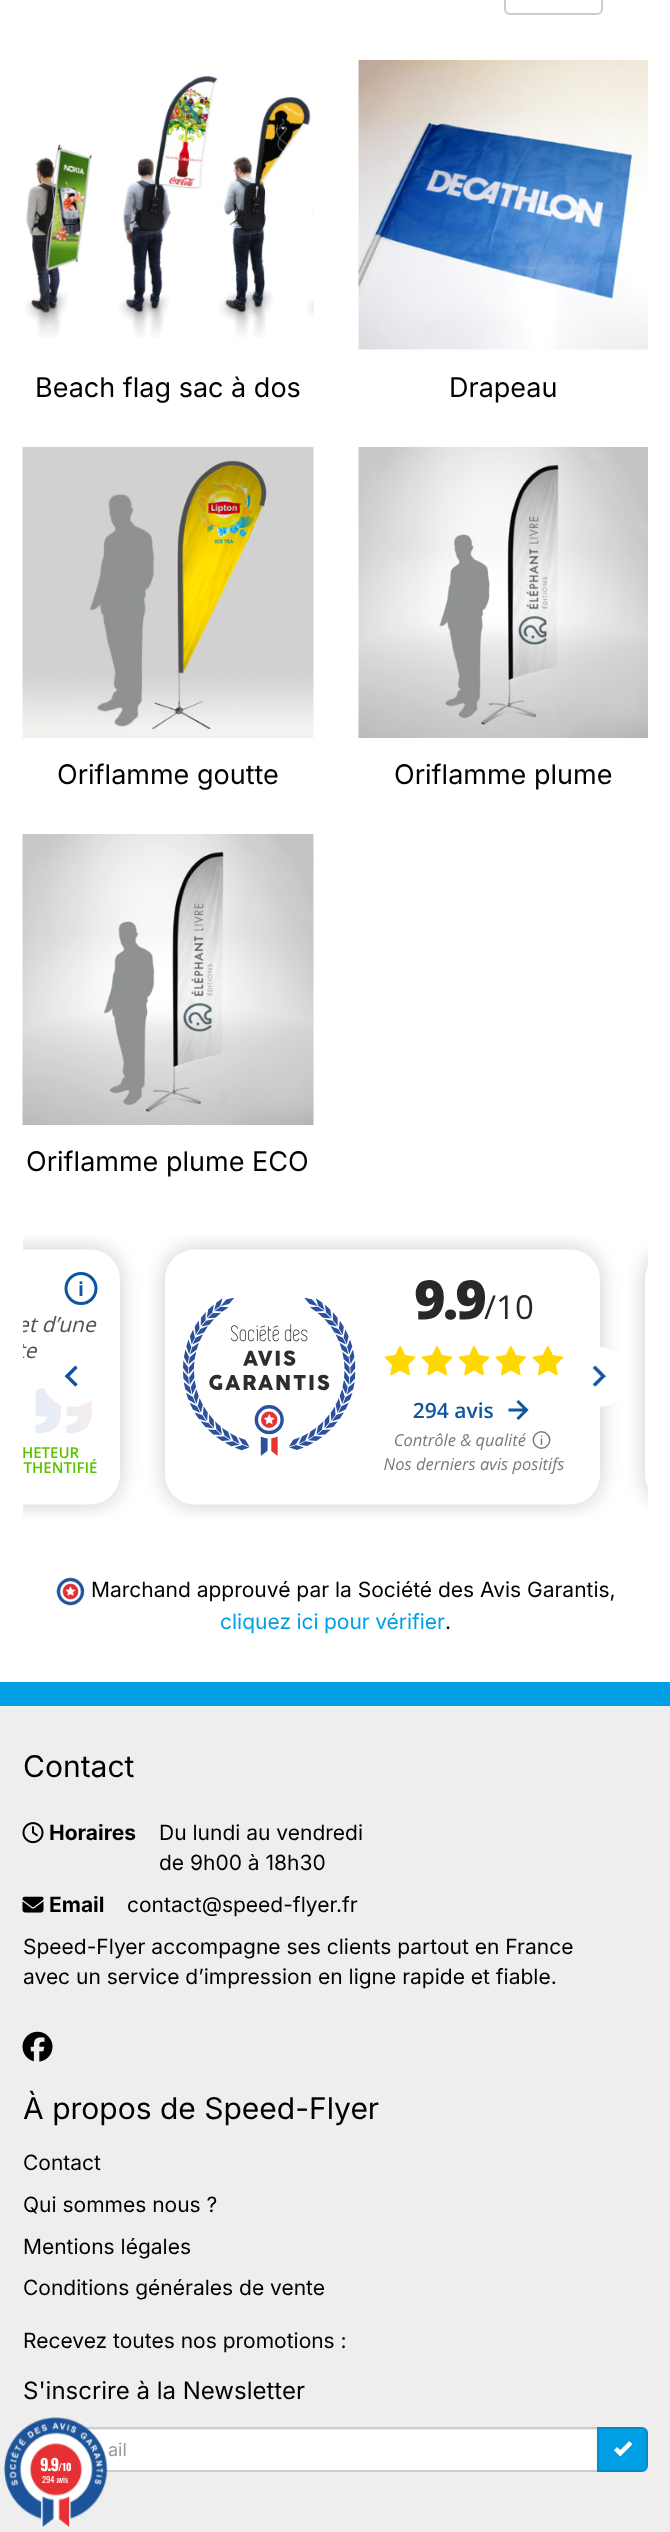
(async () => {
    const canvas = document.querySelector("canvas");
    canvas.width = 670;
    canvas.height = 2532;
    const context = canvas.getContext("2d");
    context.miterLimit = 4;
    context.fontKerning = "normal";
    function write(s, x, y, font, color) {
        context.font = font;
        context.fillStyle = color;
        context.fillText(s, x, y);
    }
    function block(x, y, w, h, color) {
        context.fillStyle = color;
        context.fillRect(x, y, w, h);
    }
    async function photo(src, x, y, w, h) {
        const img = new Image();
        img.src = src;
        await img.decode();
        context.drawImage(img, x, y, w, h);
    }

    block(0, 0, 670, 2532, "rgb(255, 255, 255)");
    context.beginPath();
    context.roundRect(505, -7, 97, 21, 5);
    context.strokeStyle = "rgb(204, 204, 204)";
    context.lineWidth = 2;
    context.stroke();
    await photo("media/1.png", 24, 75, 290, 264);
    write("Beach flag sac à dos", 35, 397, "27px Inter", "rgb(0, 0, 0)");
    await photo("media/2.png", 358, 60, 290, 290);
    write("Drapeau", 449, 397, "27px Inter", "rgb(0, 0, 0)");
    await photo("media/3.png", 22, 447, 292, 291);
    write("Oriflamme goutte", 57, 784, "27px Inter", "rgb(0, 0, 0)");
    await photo("media/4.png", 358, 447, 290, 291);
    write("Oriflamme plume", 394, 784, "27px Inter", "rgb(0, 0, 0)");
    await photo("media/5.png", 22, 834, 292, 291);
    write("Oriflamme plume ECO", 26, 1171, "27px Inter", "rgb(0, 0, 0)");
    await photo("media/6.png", 23, 1236, 625, 282);
    await photo("media/7.png", 56, 1577, 29, 29);
    write("Marchand approuvé par la Société des Avis Garantis,", 91, 1597, "21px Inter", "rgb(0, 0, 0)");
    context.wordSpacing = "-0.5px";
    write("cliquez ici pour vérifier", 220, 1629, "21px Inter", "rgb(0, 159, 227)");
    context.wordSpacing = "0px";
    write(".", 445, 1629, "21px Inter", "rgb(0, 0, 0)");
    block(0, 1682, 670, 24, "rgb(0, 159, 227)");
    block(0, 1706, 670, 826, "rgb(238, 238, 238)");
    write("Contact", 23, 1777, "30px Inter", "rgb(0, 0, 0)");
    await photo("media/8.png", 22, 1822, 22, 22);
    write("Horaires", 49, 1840, "bold 21px Inter", "rgb(0, 0, 0)");
    write("Du lundi au vendredi", 159, 1840, "21px Inter", "rgb(0, 0, 0)");
    write("de 9h00 à 18h30", 159, 1870, "21px Inter", "rgb(0, 0, 0)");
    await photo("media/9.png", 22, 1896, 22, 17);
    write("Email", 49, 1912, "bold 21px Inter", "rgb(0, 0, 0)");
    write("contact@speed-flyer.fr", 127, 1912, "21px Inter", "rgb(0, 0, 0)");
    write("Speed-Flyer accompagne ses clients partout en France", 23, 1954, "21px Inter", "rgb(0, 0, 0)");
    write("avec un service d’impression en ligne rapide et fiable.", 23, 1984, "21px Inter", "rgb(0, 0, 0)");
    await photo("media/10.png", 22, 2031, 31, 31);
    write("À propos de Speed-Flyer", 23, 2119, "30px Inter", "rgb(0, 0, 0)");
    write("Contact", 23, 2170, "21px Inter", "rgb(0, 0, 0)");
    write("Qui sommes nous ?", 23, 2212, "21px Inter", "rgb(0, 0, 0)");
    write("Mentions légales", 23, 2254, "21px Inter", "rgb(0, 0, 0)");
    write("Conditions générales de vente", 23, 2295, "21px Inter", "rgb(0, 0, 0)");
    write("Recevez toutes nos promotions :", 23, 2348, "21px Inter", "rgb(0, 0, 0)");
    write("S'inscrire à la Newsletter", 23, 2399, "24px Inter", "rgb(0, 0, 0)");
    context.fillStyle = "rgb(255, 255, 255)";
    context.beginPath();
    context.roundRect(23, 2427, 576, 45, [6, 0, 0, 6]);
    context.fill();
    context.fillStyle = "rgb(236, 236, 236)";
    context.beginPath();
    context.moveTo(28, 2430);
    context.lineTo(597, 2430);
    context.lineTo(597, 2429);
    context.lineTo(29, 2429);
    context.bezierCurveTo(26, 2429, 24, 2431, 24, 2434);
    context.bezierCurveTo(24, 2432, 26, 2430, 28, 2430);
    context.closePath();
    context.fill();
    context.beginPath();
    context.roundRect(24, 2428, 574, 43, [5, 0, 0, 5]);
    context.stroke();
    write("ail", 108, 2456, "18px Inter", "rgb(153, 153, 153)");
    context.fillStyle = "rgb(0, 159, 227)";
    context.beginPath();
    context.roundRect(598, 2428, 49, 43, [0, 5, 5, 0]);
    context.fill();
    context.strokeStyle = "rgb(0, 141, 202)";
    context.stroke();
    await photo("media/11.png", 614, 2441, 19, 16);
    await photo("media/12.png", 4, 2417, 104, 111);
    context.letterSpacing = "-1px";
    write("9.9", 40, 2471, "bold 16px Oswald", "rgb(255, 255, 255)");
    context.letterSpacing = "0px";
    write("/10", 58, 2471, "bold 10px Oswald", "rgb(255, 255, 255)");
    write("294 avis", 42, 2483, "8.5px Oswald", "rgb(255, 255, 255)");
})();
